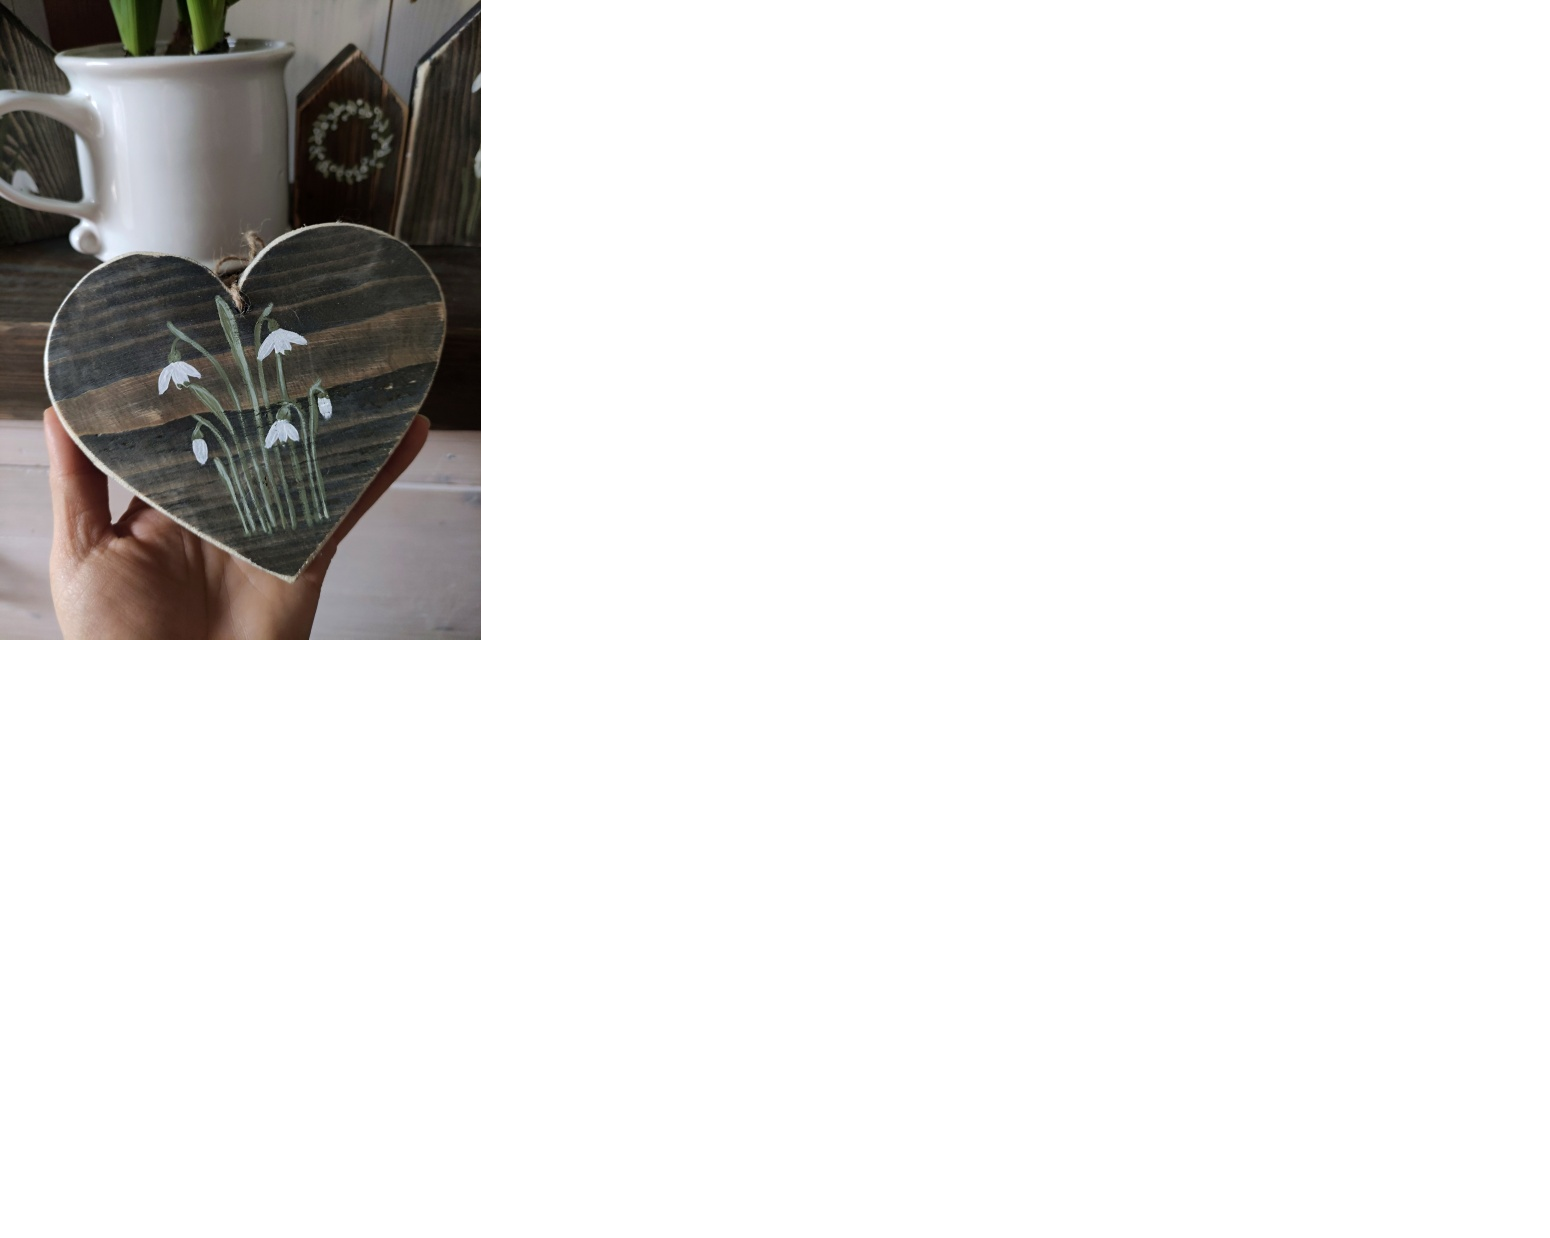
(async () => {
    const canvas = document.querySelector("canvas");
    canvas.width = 1550;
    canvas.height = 1238;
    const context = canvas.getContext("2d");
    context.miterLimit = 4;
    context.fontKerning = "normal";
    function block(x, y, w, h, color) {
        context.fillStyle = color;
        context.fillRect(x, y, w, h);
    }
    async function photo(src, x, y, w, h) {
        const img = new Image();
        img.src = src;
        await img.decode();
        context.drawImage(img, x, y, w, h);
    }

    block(0, 0, 1550, 1238, "rgb(255, 255, 255)");
    await photo("media/1.png", 0, 0, 481, 640);
})();
